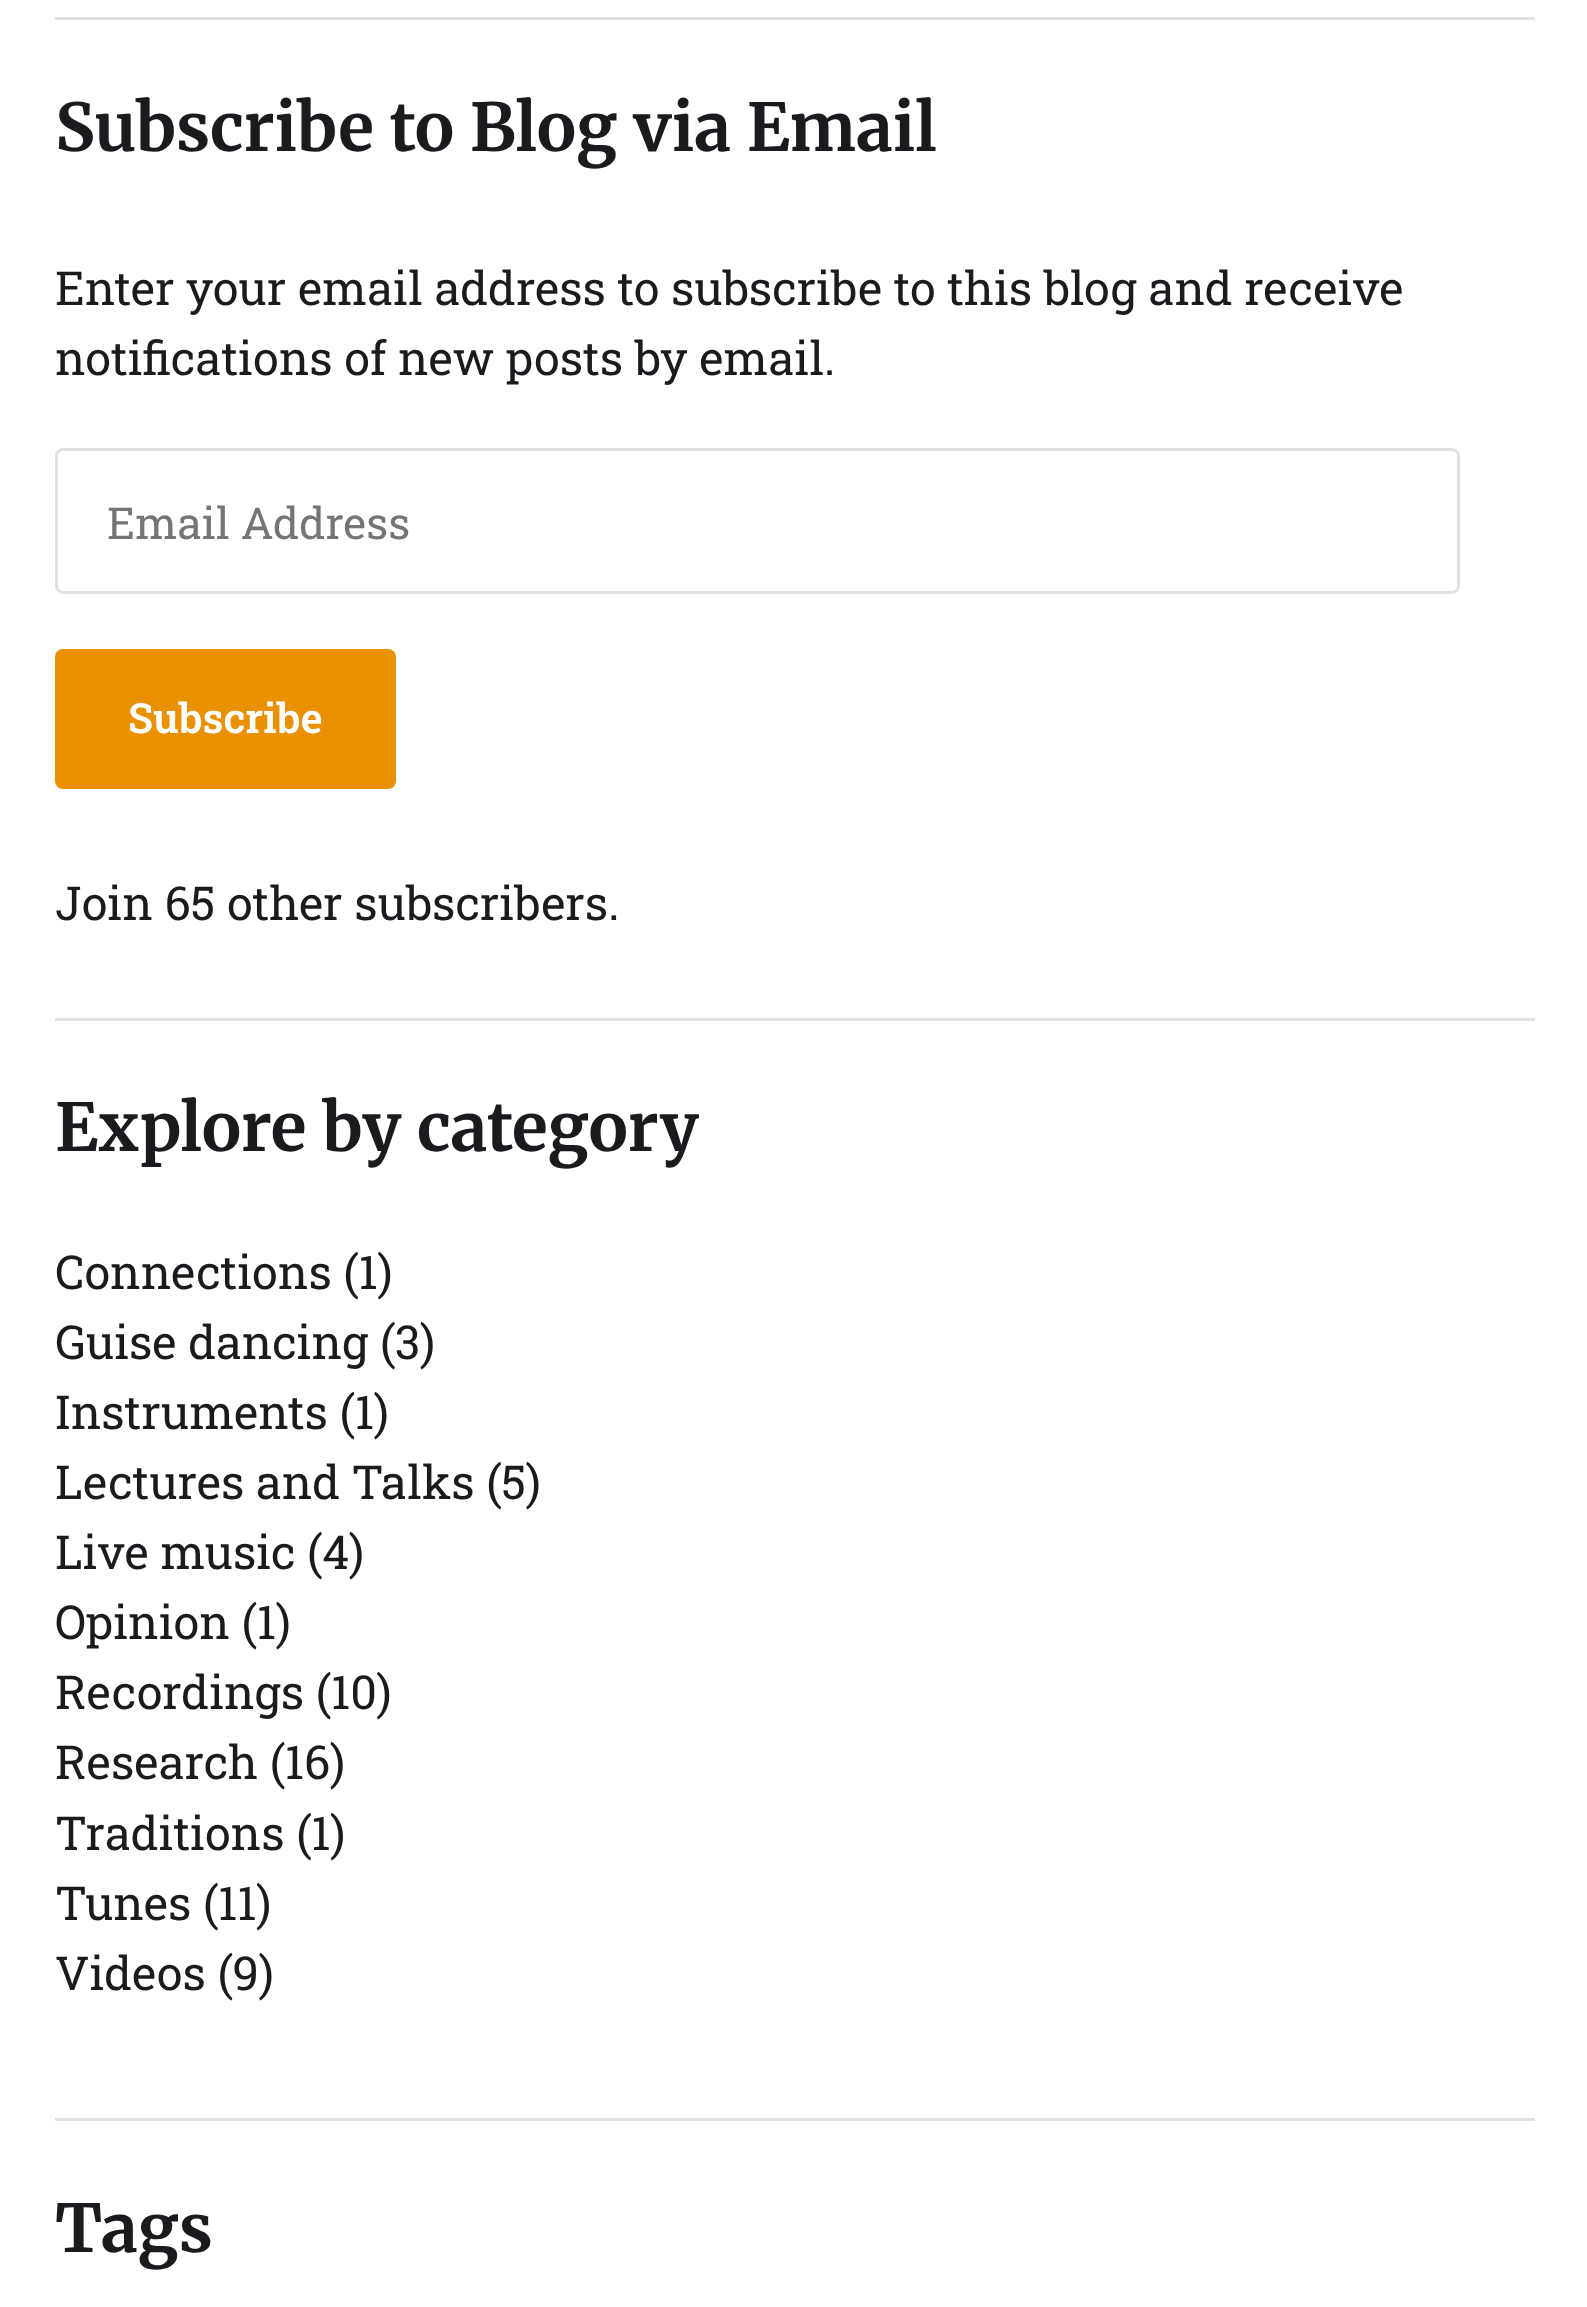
(async () => {
    const canvas = document.querySelector("canvas");
    canvas.width = 1587;
    canvas.height = 2307;
    const context = canvas.getContext("2d");
    context.miterLimit = 4;
    context.fontKerning = "normal";
    function write(s, x, y, font, color) {
        context.font = font;
        context.fillStyle = color;
        context.fillText(s, x, y);
    }
    function block(x, y, w, h, color) {
        context.fillStyle = color;
        context.fillRect(x, y, w, h);
    }
    function card(x, y, w, h, r, color) {
        context.fillStyle = color;
        context.beginPath();
        context.roundRect(x, y, w, h, r);
        context.fill();
    }

    block(0, 0, 1587, 2307, "rgb(255, 255, 255)");
    block(55, 17, 1480, 3, "rgb(225, 225, 227)");
    write("Subscribe to Blog via Email", 55, 151, "bold 66px Merriweather", "rgb(26, 27, 31)");
    write("Enter your email address to subscribe to this blog and receive", 55, 305, "46.75px Roboto Slab", "rgb(26, 27, 31)");
    write("notifications of new posts by email.", 55, 375, "46.75px Roboto Slab", "rgb(26, 27, 31)");
    context.beginPath();
    context.roundRect(56.5, 449.5, 1402, 143, 6.5);
    context.strokeStyle = "rgb(225, 225, 227)";
    context.lineWidth = 3;
    context.stroke();
    write("Email Address", 107, 539, "44px Roboto Slab", "rgb(116, 117, 121)");
    card(55, 649, 341, 140, 8, "rgb(233, 145, 0)");
    write("Subscribe", 128, 733, "600 41.5px Roboto Slab", "rgb(255, 255, 255)");
    write("Join 65 other subscribers.", 55, 920, "46.75px Roboto Slab", "rgb(26, 27, 31)");
    block(55, 1018, 1480, 3, "rgb(225, 225, 227)");
    write("Explore by category", 55, 1151, "bold 66px Merriweather", "rgb(26, 27, 31)");
    write("Connections (1)", 55, 1289, "46.75px Roboto Slab", "rgb(26, 27, 31)");
    write("Guise dancing (3)", 55, 1359, "46.75px Roboto Slab", "rgb(26, 27, 31)");
    write("Instruments (1)", 55, 1429, "46.75px Roboto Slab", "rgb(26, 27, 31)");
    write("Lectures and Talks (5)", 55, 1499, "46.75px Roboto Slab", "rgb(26, 27, 31)");
    write("Live music (4)", 55, 1569, "46.75px Roboto Slab", "rgb(26, 27, 31)");
    write("Opinion (1)", 55, 1639, "46.75px Roboto Slab", "rgb(26, 27, 31)");
    write("Recordings (10)", 55, 1709, "46.75px Roboto Slab", "rgb(26, 27, 31)");
    write("Research (16)", 55, 1779, "46.75px Roboto Slab", "rgb(26, 27, 31)");
    write("Traditions (1)", 55, 1850, "46.75px Roboto Slab", "rgb(26, 27, 31)");
    write("Tunes (11)", 55, 1920, "46.75px Roboto Slab", "rgb(26, 27, 31)");
    write("Videos (9)", 55, 1990, "46.75px Roboto Slab", "rgb(26, 27, 31)");
    block(55, 2118, 1480, 3, "rgb(225, 225, 227)");
    write("Tags", 55, 2252, "bold 66px Merriweather", "rgb(26, 27, 31)");
})();
